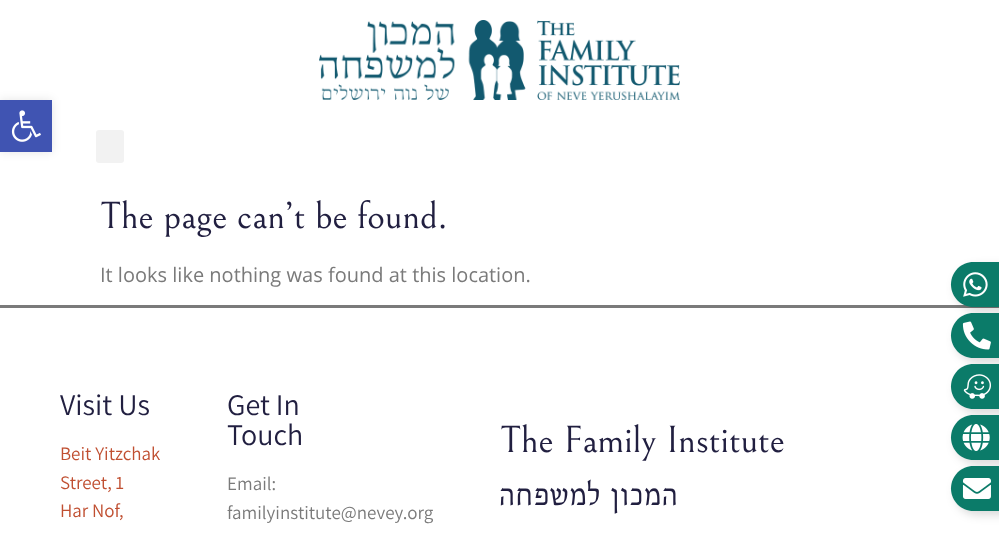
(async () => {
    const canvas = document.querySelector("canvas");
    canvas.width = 999;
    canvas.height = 536;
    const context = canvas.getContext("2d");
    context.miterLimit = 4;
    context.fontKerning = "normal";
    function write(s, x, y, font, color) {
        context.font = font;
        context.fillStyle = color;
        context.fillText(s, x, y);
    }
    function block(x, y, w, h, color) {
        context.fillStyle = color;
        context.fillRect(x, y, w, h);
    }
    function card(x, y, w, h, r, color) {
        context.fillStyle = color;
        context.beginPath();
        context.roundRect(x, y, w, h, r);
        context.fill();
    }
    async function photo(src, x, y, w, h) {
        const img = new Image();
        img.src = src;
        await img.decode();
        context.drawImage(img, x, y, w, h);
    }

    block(0, 0, 999, 536, "rgb(255, 255, 255)");
    context.fillStyle = "rgba(0, 0, 0, 0.1)";
    context.filter = "blur(5px)";
    context.beginPath();
    context.rect(0, 100, 52, 52);
    context.fill();
    context.filter = "none";
    block(0, 100, 52, 52, "rgb(64, 84, 178)");
    await photo("media/1.png", 11, 110, 30, 32);
    await photo("media/2.png", 319, 20, 361, 80);
    card(96, 130, 28, 33, 3, "rgb(242, 242, 242)");
    write("The page can’t be found.", 100, 228, "38px Bellefair", "rgb(33, 31, 64)");
    write("It looks like nothing was found at this location.", 100, 282, "20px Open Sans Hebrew", "rgb(122, 122, 122)");
    block(0, 305, 999, 3, "rgb(122, 122, 122)");
    context.fillStyle = "rgba(0, 0, 0, 0.15)";
    context.filter = "blur(5px)";
    context.beginPath();
    context.roundRect(955, 266, 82, 45, 22.5);
    context.fill();
    context.filter = "none";
    context.fillStyle = "rgb(11, 123, 105)";
    context.beginPath();
    context.moveTo(973.5, 262);
    context.lineTo(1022, 262);
    context.lineTo(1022, 307);
    context.lineTo(973.5, 307);
    context.bezierCurveTo(961, 307, 951, 297, 951, 284.5);
    context.bezierCurveTo(951, 272, 961, 262, 973.5, 262);
    context.closePath();
    context.fill();
    await photo("media/3.png", 963, 272, 25, 25);
    context.fillStyle = "rgba(0, 0, 0, 0.15)";
    context.filter = "blur(5px)";
    context.beginPath();
    context.roundRect(955, 317, 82, 45, 22.5);
    context.fill();
    context.filter = "none";
    context.fillStyle = "rgb(11, 123, 105)";
    context.beginPath();
    context.moveTo(973.5, 313);
    context.lineTo(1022, 313);
    context.lineTo(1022, 358);
    context.lineTo(973.5, 358);
    context.bezierCurveTo(961, 358, 951, 348, 951, 335.5);
    context.bezierCurveTo(951, 323, 961, 313, 973.5, 313);
    context.closePath();
    context.fill();
    await photo("media/4.png", 962, 321, 29, 29);
    context.fillStyle = "rgba(0, 0, 0, 0.15)";
    context.filter = "blur(5px)";
    context.beginPath();
    context.roundRect(955, 368, 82, 45, 22.5);
    context.fill();
    context.filter = "none";
    context.fillStyle = "rgb(11, 123, 105)";
    context.beginPath();
    context.moveTo(973.5, 364);
    context.lineTo(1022, 364);
    context.lineTo(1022, 409);
    context.lineTo(973.5, 409);
    context.bezierCurveTo(961, 409, 951, 399, 951, 386.5);
    context.bezierCurveTo(951, 374, 961, 364, 973.5, 364);
    context.closePath();
    context.fill();
    await photo("media/5.png", 963, 374, 28, 25);
    context.fillStyle = "rgba(0, 0, 0, 0.15)";
    context.filter = "blur(5px)";
    context.beginPath();
    context.roundRect(955, 419, 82, 45, 22.5);
    context.fill();
    context.filter = "none";
    context.fillStyle = "rgb(11, 123, 105)";
    context.beginPath();
    context.moveTo(973.5, 415);
    context.lineTo(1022, 415);
    context.lineTo(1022, 460);
    context.lineTo(973.5, 460);
    context.bezierCurveTo(961, 460, 951, 450, 951, 437.5);
    context.bezierCurveTo(951, 425, 961, 415, 973.5, 415);
    context.closePath();
    context.fill();
    await photo("media/6.png", 962, 424, 28, 27);
    context.fillStyle = "rgba(0, 0, 0, 0.15)";
    context.filter = "blur(5px)";
    context.beginPath();
    context.roundRect(955, 470, 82, 45, 22.5);
    context.fill();
    context.filter = "none";
    context.fillStyle = "rgb(11, 123, 105)";
    context.beginPath();
    context.moveTo(973.5, 466);
    context.lineTo(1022, 466);
    context.lineTo(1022, 511);
    context.lineTo(973.5, 511);
    context.bezierCurveTo(961, 511, 951, 501, 951, 488.5);
    context.bezierCurveTo(951, 476, 961, 466, 973.5, 466);
    context.closePath();
    context.fill();
    await photo("media/7.png", 962, 478, 29, 21);
    write("Visit Us", 60, 415, "30px Assistant", "rgb(33, 31, 64)");
    write("Beit Yitzchak", 60, 460, "19px Assistant", "rgb(192, 79, 49)");
    write("Street, 1", 60, 489, "19px Assistant", "rgb(192, 79, 49)");
    write("Har Nof,", 60, 517, "19px Assistant", "rgb(192, 79, 49)");
    write("Get In", 227, 415, "30px Assistant", "rgb(33, 31, 64)");
    write("Touch", 227, 445, "30px Assistant", "rgb(33, 31, 64)");
    write("Email:", 227, 490, "19px Assistant", "rgb(122, 122, 122)");
    write("familyinstitute@nevey.org", 227, 519, "19px Assistant", "rgb(122, 122, 122)");
    write("The Family Institute", 500, 452, "38px Bellefair", "rgb(33, 31, 64)");
    context.direction = "rtl";
    write("המכון למשפחה", 678, 505, "38px Bellefair", "rgb(33, 31, 64)");
})();
